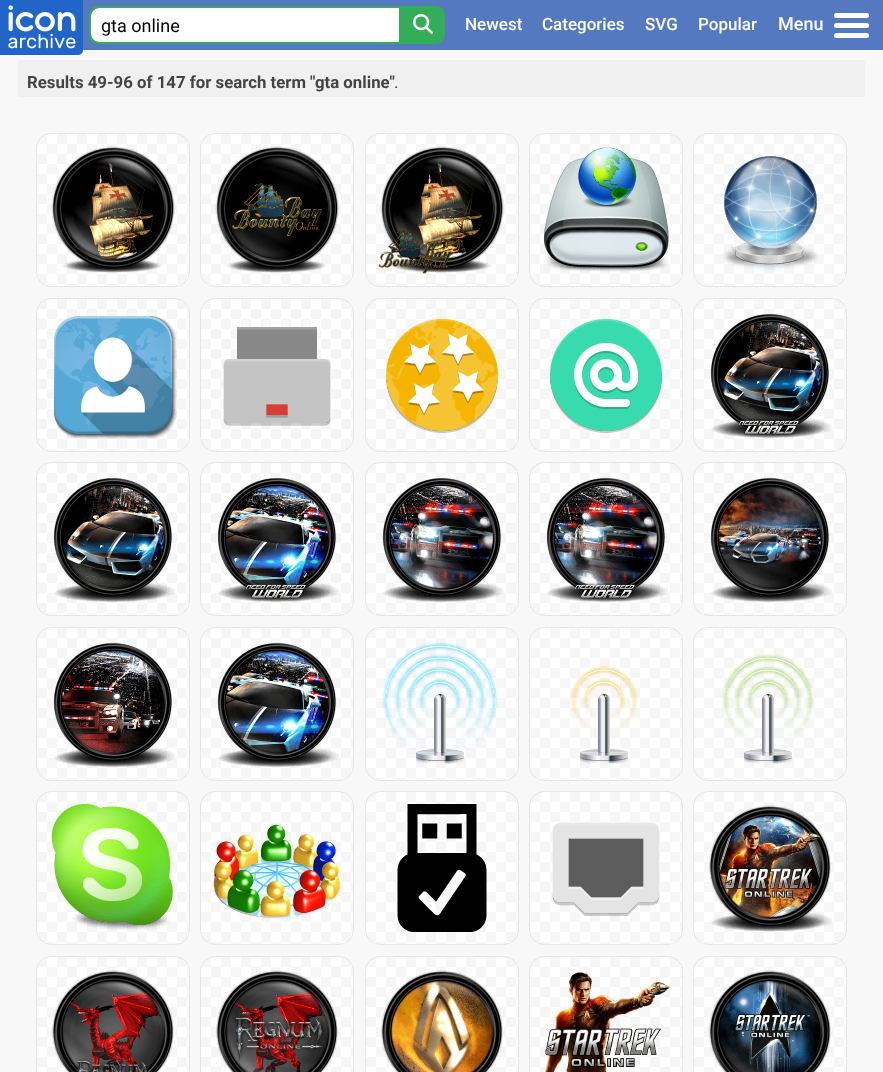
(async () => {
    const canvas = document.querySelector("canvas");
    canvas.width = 883;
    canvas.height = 1072;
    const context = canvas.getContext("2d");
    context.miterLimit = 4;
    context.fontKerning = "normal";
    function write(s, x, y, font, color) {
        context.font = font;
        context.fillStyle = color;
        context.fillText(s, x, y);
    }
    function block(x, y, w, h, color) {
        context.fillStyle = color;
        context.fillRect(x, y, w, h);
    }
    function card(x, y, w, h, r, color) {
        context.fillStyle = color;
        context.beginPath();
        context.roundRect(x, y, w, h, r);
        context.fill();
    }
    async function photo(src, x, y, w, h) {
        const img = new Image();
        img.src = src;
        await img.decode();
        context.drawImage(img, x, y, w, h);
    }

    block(0, 0, 883, 1072, "rgb(248, 248, 248)");
    block(83, 0, 800, 50, "rgb(84, 121, 193)");
    await photo("media/1.png", 0, 0, 83, 55);
    context.fillStyle = "rgb(255, 255, 255)";
    context.beginPath();
    context.roundRect(91, 8, 308, 34, [8, 0, 0, 8]);
    context.fill();
    context.fillStyle = "rgb(52, 173, 89)";
    context.beginPath();
    context.moveTo(99, 6);
    context.lineTo(399, 6);
    context.lineTo(399, 44);
    context.lineTo(99, 44);
    context.bezierCurveTo(93, 44, 89, 40, 89, 34);
    context.lineTo(89, 16);
    context.bezierCurveTo(89, 10, 93, 6, 99, 6);
    context.closePath();
    context.moveTo(99, 8);
    context.lineTo(399, 8);
    context.lineTo(399, 42);
    context.lineTo(99, 42);
    context.bezierCurveTo(95, 42, 91, 38, 91, 34);
    context.lineTo(91, 16);
    context.bezierCurveTo(91, 12, 95, 8, 99, 8);
    context.closePath();
    context.fill("evenodd");
    write("gta online", 101, 32, "18px Roboto", "rgb(0, 0, 0)");
    context.fillStyle = "rgb(52, 173, 89)";
    context.beginPath();
    context.roundRect(399, 8, 44, 34, [0, 8, 8, 0]);
    context.fill();
    context.beginPath();
    context.moveTo(399, 6);
    context.lineTo(435, 6);
    context.bezierCurveTo(441, 6, 445, 10, 445, 16);
    context.lineTo(445, 34);
    context.bezierCurveTo(445, 40, 441, 44, 435, 44);
    context.lineTo(399, 44);
    context.closePath();
    context.moveTo(399, 8);
    context.lineTo(429, 8);
    context.bezierCurveTo(444, 8, 443, 11, 443, 25);
    context.bezierCurveTo(443, 39, 444, 42, 429, 42);
    context.lineTo(399, 42);
    context.closePath();
    context.fill("evenodd");
    await photo("media/2.png", 413, 14, 20, 20);
    write("Newest", 465, 30, "500 17px Roboto", "rgb(255, 255, 255)");
    write("Categories", 542, 30, "500 17px Roboto", "rgb(255, 255, 255)");
    write("SVG", 645, 30, "500 17px Roboto", "rgb(255, 255, 255)");
    write("Popular", 698, 30, "500 17px Roboto", "rgb(255, 255, 255)");
    write("Menu", 778, 30, "500 18px Roboto", "rgb(255, 255, 255)");
    card(834, 13, 35, 5, 2.5, "rgb(255, 255, 255)");
    card(834, 23, 35, 5, 2.5, "rgb(255, 255, 255)");
    card(834, 33, 35, 5, 2.5, "rgb(255, 255, 255)");
    card(18, 60, 847, 37, 3, "rgb(240, 240, 240)");
    write("Results 49-96 of 147 for search term \"gta online\"", 27, 88, "bold 16.8px Roboto", "rgb(68, 68, 68)");
    write(".", 394, 88, "16.8px Roboto", "rgb(68, 68, 68)");
    await photo("media/3.png", 36, 133, 154, 154);
    context.beginPath();
    context.roundRect(36.5, 133.5, 153, 153, 14.5);
    context.strokeStyle = "rgb(229, 229, 229)";
    context.stroke();
    await photo("media/4.png", 51, 146, 124, 127);
    await photo("media/3.png", 200, 133, 154, 154);
    context.beginPath();
    context.roundRect(200.5, 133.5, 153, 153, 14.5);
    context.stroke();
    await photo("media/5.png", 215, 146, 124, 127);
    await photo("media/6.png", 365, 133, 154, 154);
    context.beginPath();
    context.roundRect(365.5, 133.5, 153, 153, 14.5);
    context.stroke();
    await photo("media/7.png", 378, 146, 126, 128);
    await photo("media/3.png", 529, 133, 154, 154);
    context.beginPath();
    context.roundRect(529.5, 133.5, 153, 153, 14.5);
    context.stroke();
    await photo("media/8.png", 543, 147, 126, 125);
    await photo("media/3.png", 693, 133, 154, 154);
    context.beginPath();
    context.roundRect(693.5, 133.5, 153, 153, 14.5);
    context.stroke();
    await photo("media/9.png", 723, 156, 95, 116);
    await photo("media/3.png", 36, 298, 154, 154);
    context.beginPath();
    context.roundRect(36.5, 298.5, 153, 153, 14.5);
    context.stroke();
    await photo("media/10.png", 54, 316, 123, 123);
    await photo("media/3.png", 200, 298, 154, 154);
    context.beginPath();
    context.roundRect(200.5, 298.5, 153, 153, 14.5);
    context.stroke();
    await photo("media/11.png", 223, 327, 108, 99);
    await photo("media/6.png", 365, 298, 154, 154);
    context.beginPath();
    context.roundRect(365.5, 298.5, 153, 153, 14.5);
    context.stroke();
    await photo("media/12.png", 386, 319, 112, 114);
    await photo("media/3.png", 529, 298, 154, 154);
    context.beginPath();
    context.roundRect(529.5, 298.5, 153, 153, 14.5);
    context.stroke();
    await photo("media/13.png", 550, 319, 112, 114);
    await photo("media/3.png", 693, 298, 154, 154);
    context.beginPath();
    context.roundRect(693.5, 298.5, 153, 153, 14.5);
    context.stroke();
    await photo("media/14.png", 710, 313, 123, 125);
    await photo("media/3.png", 36, 462, 154, 154);
    context.beginPath();
    context.roundRect(36.5, 462.5, 153, 153, 14.5);
    context.stroke();
    await photo("media/15.png", 53, 477, 122, 125);
    await photo("media/3.png", 200, 462, 154, 154);
    context.beginPath();
    context.roundRect(200.5, 462.5, 153, 153, 14.5);
    context.stroke();
    await photo("media/16.png", 217, 477, 122, 125);
    await photo("media/6.png", 365, 462, 154, 154);
    context.beginPath();
    context.roundRect(365.5, 462.5, 153, 153, 14.5);
    context.stroke();
    await photo("media/17.png", 382, 478, 122, 124);
    await photo("media/3.png", 529, 462, 154, 154);
    context.beginPath();
    context.roundRect(529.5, 462.5, 153, 153, 14.5);
    context.stroke();
    await photo("media/18.png", 546, 477, 122, 125);
    await photo("media/3.png", 693, 462, 154, 154);
    context.beginPath();
    context.roundRect(693.5, 462.5, 153, 153, 14.5);
    context.stroke();
    await photo("media/19.png", 710, 477, 122, 125);
    await photo("media/3.png", 36, 627, 154, 154);
    context.beginPath();
    context.roundRect(36.5, 627.5, 153, 153, 14.5);
    context.stroke();
    await photo("media/20.png", 53, 642, 123, 125);
    await photo("media/3.png", 200, 627, 154, 154);
    context.beginPath();
    context.roundRect(200.5, 627.5, 153, 153, 14.5);
    context.stroke();
    await photo("media/21.png", 217, 642, 122, 125);
    await photo("media/6.png", 365, 627, 154, 154);
    context.beginPath();
    context.roundRect(365.5, 627.5, 153, 153, 14.5);
    context.stroke();
    await photo("media/22.png", 382, 642, 116, 122);
    await photo("media/3.png", 529, 627, 154, 154);
    context.beginPath();
    context.roundRect(529.5, 627.5, 153, 153, 14.5);
    context.stroke();
    await photo("media/23.png", 570, 665, 68, 99);
    await photo("media/3.png", 693, 627, 154, 154);
    context.beginPath();
    context.roundRect(693.5, 627.5, 153, 153, 14.5);
    context.stroke();
    await photo("media/24.png", 722, 653, 92, 111);
    await photo("media/3.png", 36, 791, 154, 154);
    context.beginPath();
    context.roundRect(36.5, 791.5, 153, 153, 14.5);
    context.stroke();
    await photo("media/25.png", 51, 804, 122, 127);
    await photo("media/3.png", 200, 791, 154, 154);
    context.beginPath();
    context.roundRect(200.5, 791.5, 153, 153, 14.5);
    context.stroke();
    await photo("media/26.png", 213, 824, 127, 95);
    await photo("media/6.png", 365, 791, 154, 154);
    context.beginPath();
    context.roundRect(365.5, 791.5, 153, 153, 14.5);
    context.stroke();
    await photo("media/27.png", 397, 804, 90, 128);
    await photo("media/3.png", 529, 791, 154, 154);
    context.beginPath();
    context.roundRect(529.5, 791.5, 153, 153, 14.5);
    context.stroke();
    await photo("media/28.png", 552, 822, 108, 94);
    await photo("media/3.png", 693, 791, 154, 154);
    context.beginPath();
    context.roundRect(693.5, 791.5, 153, 153, 14.5);
    context.stroke();
    await photo("media/29.png", 709, 805, 123, 127);
    await photo("media/30.png", 36, 956, 154, 116);
    context.beginPath();
    context.roundRect(36.5, 956.5, 153, 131, 14.5);
    context.stroke();
    await photo("media/31.png", 51, 970, 123, 102);
    await photo("media/30.png", 200, 956, 154, 116);
    context.beginPath();
    context.roundRect(200.5, 956.5, 153, 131, 14.5);
    context.stroke();
    await photo("media/32.png", 216, 970, 122, 102);
    await photo("media/33.png", 365, 956, 154, 116);
    context.beginPath();
    context.roundRect(365.5, 956.5, 153, 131, 14.5);
    context.stroke();
    await photo("media/34.png", 381, 970, 122, 102);
    await photo("media/30.png", 529, 956, 154, 116);
    context.beginPath();
    context.roundRect(529.5, 956.5, 153, 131, 14.5);
    context.stroke();
    await photo("media/35.png", 545, 972, 125, 100);
    await photo("media/30.png", 693, 956, 154, 116);
    context.beginPath();
    context.roundRect(693.5, 956.5, 153, 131, 14.5);
    context.stroke();
    await photo("media/36.png", 708, 970, 123, 102);
})();
